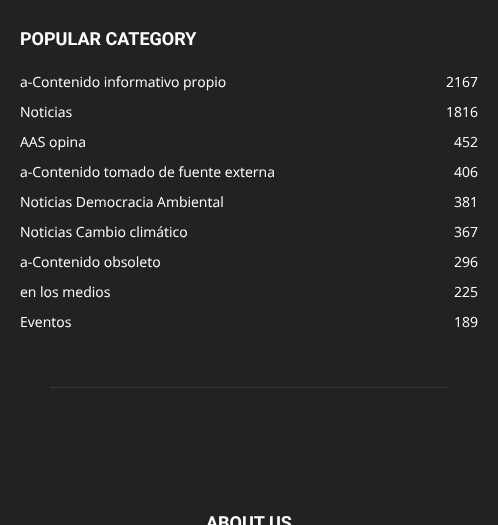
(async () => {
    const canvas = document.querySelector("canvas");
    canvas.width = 498;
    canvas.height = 525;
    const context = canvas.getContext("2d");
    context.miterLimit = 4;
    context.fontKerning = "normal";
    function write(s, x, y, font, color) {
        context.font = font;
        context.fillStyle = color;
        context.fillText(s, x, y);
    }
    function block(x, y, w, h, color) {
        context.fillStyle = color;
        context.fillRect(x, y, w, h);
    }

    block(0, 0, 498, 525, "rgb(34, 34, 34)");
    write("POPULAR CATEGORY", 20, 45, "bold 18px Roboto", "rgb(255, 255, 255)");
    write("a-Contenido informativo propio", 20, 87, "14px Open Sans", "rgb(255, 255, 255)");
    write("2167", 446, 87, "14px Open Sans", "rgb(255, 255, 255)");
    write("Noticias", 20, 117, "14px Open Sans", "rgb(255, 255, 255)");
    write("1816", 446, 117, "14px Open Sans", "rgb(255, 255, 255)");
    write("AAS opina", 20, 147, "14px Open Sans", "rgb(255, 255, 255)");
    write("452", 454, 147, "14px Open Sans", "rgb(255, 255, 255)");
    write("a-Contenido tomado de fuente externa", 20, 177, "14px Open Sans", "rgb(255, 255, 255)");
    write("406", 454, 177, "14px Open Sans", "rgb(255, 255, 255)");
    write("Noticias Democracia Ambiental", 20, 207, "14px Open Sans", "rgb(255, 255, 255)");
    write("381", 454, 207, "14px Open Sans", "rgb(255, 255, 255)");
    write("Noticias Cambio climático", 20, 237, "14px Open Sans", "rgb(255, 255, 255)");
    write("367", 454, 237, "14px Open Sans", "rgb(255, 255, 255)");
    write("a-Contenido obsoleto", 20, 267, "14px Open Sans", "rgb(255, 255, 255)");
    write("296", 454, 267, "14px Open Sans", "rgb(255, 255, 255)");
    write("en los medios", 20, 297, "14px Open Sans", "rgb(255, 255, 255)");
    write("225", 454, 297, "14px Open Sans", "rgb(255, 255, 255)");
    write("Eventos", 20, 327, "14px Open Sans", "rgb(255, 255, 255)");
    write("189", 454, 327, "14px Open Sans", "rgb(255, 255, 255)");
    block(50, 387, 398, 1, "rgb(56, 56, 56)");
    write("ABOUT US", 206, 529, "bold 18px Roboto", "rgb(255, 255, 255)");
})();
